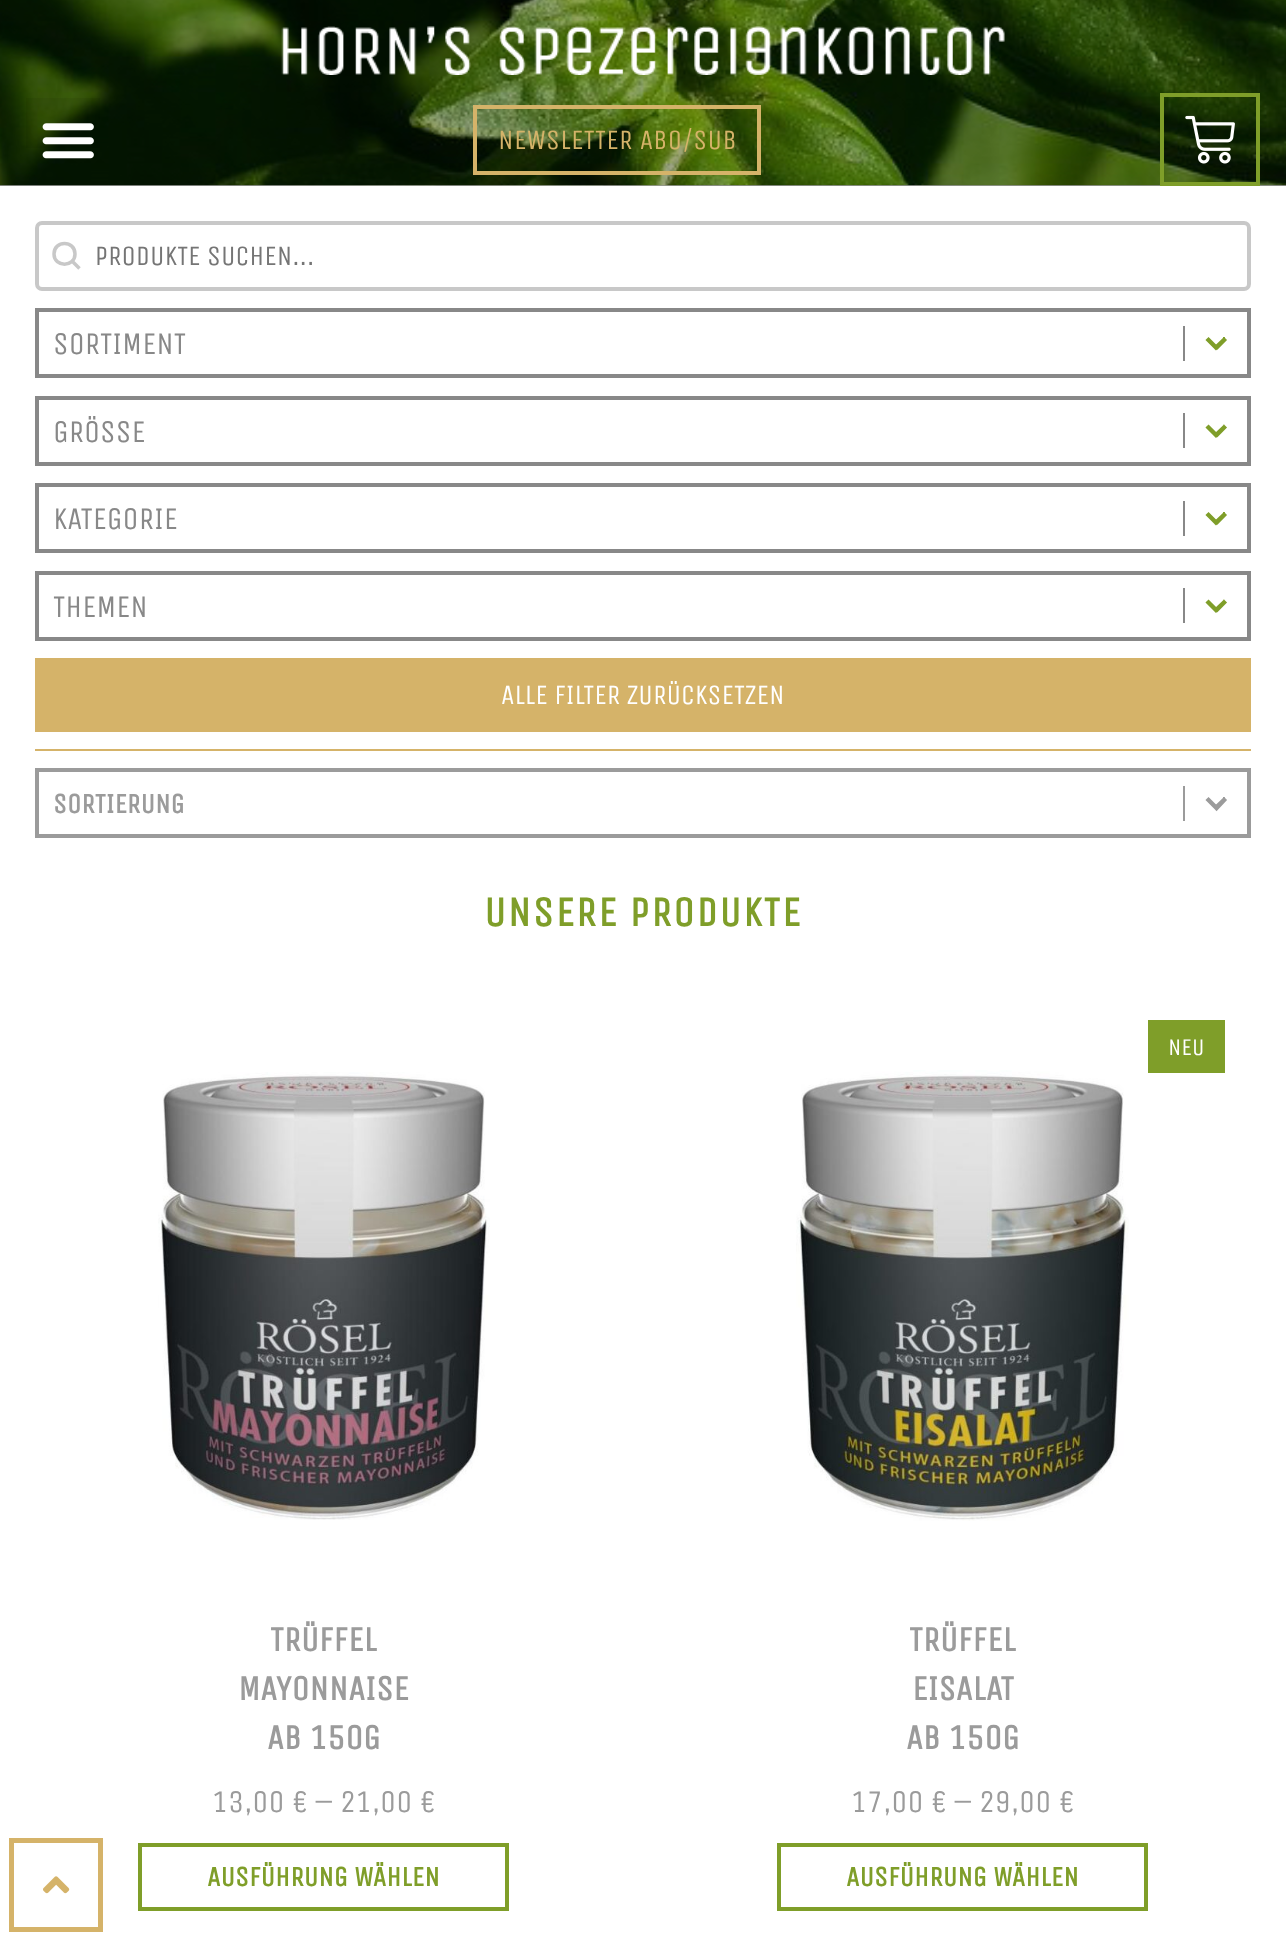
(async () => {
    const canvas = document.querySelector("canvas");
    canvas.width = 1286;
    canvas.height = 1940;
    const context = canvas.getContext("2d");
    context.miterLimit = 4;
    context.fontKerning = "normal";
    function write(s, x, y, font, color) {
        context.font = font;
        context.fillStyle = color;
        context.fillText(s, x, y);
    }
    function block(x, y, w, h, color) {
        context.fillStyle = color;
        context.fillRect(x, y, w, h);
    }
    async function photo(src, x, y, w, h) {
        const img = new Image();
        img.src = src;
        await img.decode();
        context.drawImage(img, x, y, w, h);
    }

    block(0, 0, 1286, 1940, "rgb(255, 255, 255)");
    block(0, 185, 1286, 1, "rgb(163, 163, 163)");
    await photo("media/1.png", 0, 0, 1286, 186);
    await photo("media/2.png", 281, 26, 724, 49);
    block(26, 98, 74, 50, "rgba(0, 0, 0, 0.05)");
    await photo("media/3.png", 42, 123, 52, 36);
    context.strokeStyle = "rgb(213, 179, 105)";
    context.lineWidth = 4;
    context.strokeRect(475, 107, 284, 66);
    context.letterSpacing = "0.3px";
    write("NEWSLETTER ABO/SUB", 498, 149, "28px Unica One", "rgb(213, 179, 105)");
    context.strokeStyle = "rgb(127, 158, 41)";
    context.strokeRect(1162, 95, 96, 89);
    await photo("media/4.png", 1185, 115, 50, 49);
    context.strokeStyle = "rgb(213, 179, 105)";
    context.lineWidth = 5;
    context.strokeRect(11.5, 1840.5, 89, 89);
    await photo("media/5.png", 43, 1876, 27, 18);
    context.beginPath();
    context.roundRect(37, 223, 1212, 66, 5);
    context.strokeStyle = "rgb(200, 200, 200)";
    context.lineWidth = 4;
    context.stroke();
    context.beginPath();
    context.moveTo(73, 262);
    context.lineTo(79.5, 268.5);
    context.closePath();
    context.moveTo(54, 254);
    context.bezierCurveTo(54, 240, 75, 240, 75, 254);
    context.bezierCurveTo(75, 267.5, 54, 267.5, 54, 254);
    context.closePath();
    context.lineWidth = 3.5;
    context.stroke();
    context.letterSpacing = "0px";
    write("PRODUKTE SUCHEN...", 95, 265, "28px Unica One", "rgb(117, 117, 117)");
    context.strokeStyle = "rgb(136, 136, 136)";
    context.lineWidth = 4;
    context.strokeRect(37, 310, 1212, 66);
    write("SORTIMENT", 53, 354, "31.5px Unica One", "rgb(136, 136, 136)");
    block(1183, 326, 2, 35, "rgb(136, 136, 136)");
    context.beginPath();
    context.moveTo(1216, 347.5);
    context.lineTo(1207, 338.5);
    context.lineTo(1216, 347.5);
    context.lineTo(1225.5, 338.5);
    context.lineTo(1216.5, 347.5);
    context.closePath();
    context.strokeStyle = "rgb(127, 158, 41)";
    context.lineWidth = 4.4;
    context.stroke();
    context.strokeStyle = "rgb(136, 136, 136)";
    context.lineWidth = 4;
    context.strokeRect(37, 398, 1212, 66);
    write("GRÖSSE", 53, 442, "31.5px Unica One", "rgb(136, 136, 136)");
    block(1183, 413, 2, 35, "rgb(136, 136, 136)");
    context.beginPath();
    context.moveTo(1216, 435);
    context.lineTo(1207, 426);
    context.lineTo(1216, 435);
    context.lineTo(1225.5, 426);
    context.lineTo(1216.5, 435);
    context.closePath();
    context.strokeStyle = "rgb(127, 158, 41)";
    context.lineWidth = 4.4;
    context.stroke();
    context.strokeStyle = "rgb(136, 136, 136)";
    context.lineWidth = 4;
    context.strokeRect(37, 485, 1212, 66);
    write("KATEGORIE", 53, 529, "31.5px Unica One", "rgb(136, 136, 136)");
    block(1183, 501, 2, 35, "rgb(136, 136, 136)");
    context.beginPath();
    context.moveTo(1216, 522.5);
    context.lineTo(1207, 513.5);
    context.lineTo(1216, 522.5);
    context.lineTo(1225.5, 513.5);
    context.lineTo(1216.5, 522.5);
    context.closePath();
    context.strokeStyle = "rgb(127, 158, 41)";
    context.lineWidth = 4.4;
    context.stroke();
    context.strokeStyle = "rgb(136, 136, 136)";
    context.lineWidth = 4;
    context.strokeRect(37, 573, 1212, 66);
    write("THEMEN", 53, 617, "31.5px Unica One", "rgb(136, 136, 136)");
    block(1183, 588, 2, 35, "rgb(136, 136, 136)");
    context.beginPath();
    context.moveTo(1216, 610);
    context.lineTo(1207, 601);
    context.lineTo(1216, 610);
    context.lineTo(1225.5, 601);
    context.lineTo(1216.5, 610);
    context.closePath();
    context.strokeStyle = "rgb(127, 158, 41)";
    context.lineWidth = 4.4;
    context.stroke();
    block(35, 658, 1216, 74, "rgb(213, 179, 105)");
    write("ALLE FILTER ZURÜCKSETZEN", 501, 704, "28px Unica One", "rgb(255, 255, 255)");
    block(35, 749, 1216, 2, "rgb(213, 179, 105)");
    context.strokeStyle = "rgb(155, 155, 155)";
    context.lineWidth = 4;
    context.strokeRect(37, 770, 1212, 66);
    write("SORTIERUNG", 53, 813, "bold 28px Unica One", "rgb(155, 155, 155)");
    block(1183, 786, 2, 35, "rgb(155, 155, 155)");
    context.beginPath();
    context.moveTo(1216, 807.5);
    context.lineTo(1207, 798.5);
    context.lineTo(1216, 807.5);
    context.lineTo(1225.5, 798.5);
    context.lineTo(1216.5, 808);
    context.closePath();
    context.lineWidth = 4.4;
    context.stroke();
    context.letterSpacing = "1.75px";
    write("UNSERE PRODUKTE", 484, 926, "bold 42px Unica One", "rgb(127, 158, 41)");
    await photo("media/6.png", 158, 1072, 332, 448);
    context.letterSpacing = "0px";
    write("TRÜFFEL", 270, 1651, "bold 35px Unica One", "rgb(155, 155, 155)");
    write("MAYONNAISE", 238, 1700, "bold 35px Unica One", "rgb(155, 155, 155)");
    write("AB 150G", 267, 1749, "bold 35px Unica One", "rgb(155, 155, 155)");
    write("13,00 € – 21,00 €", 212, 1812, "31.5px Unica One", "rgb(155, 155, 155)");
    context.strokeStyle = "rgb(127, 158, 41)";
    context.lineWidth = 4;
    context.strokeRect(140, 1845, 367, 64);
    write("AUSFÜHRUNG WÄHLEN", 207, 1886, "bold 28px Unica One", "rgb(127, 158, 41)");
    block(1148, 1020, 77, 53, "rgb(127, 158, 41)");
    write("NEU", 1168, 1055, "24px Unica One", "rgb(255, 255, 255)");
    await photo("media/7.png", 796, 1070, 333, 451);
    write("TRÜFFEL", 909, 1651, "bold 35px Unica One", "rgb(155, 155, 155)");
    write("EISALAT", 912, 1700, "bold 35px Unica One", "rgb(155, 155, 155)");
    write("AB 150G", 906, 1749, "bold 35px Unica One", "rgb(155, 155, 155)");
    write("17,00 € – 29,00 €", 851, 1812, "31.5px Unica One", "rgb(155, 155, 155)");
    context.strokeRect(779, 1845, 367, 64);
    write("AUSFÜHRUNG WÄHLEN", 846, 1886, "bold 28px Unica One", "rgb(127, 158, 41)");
})();
